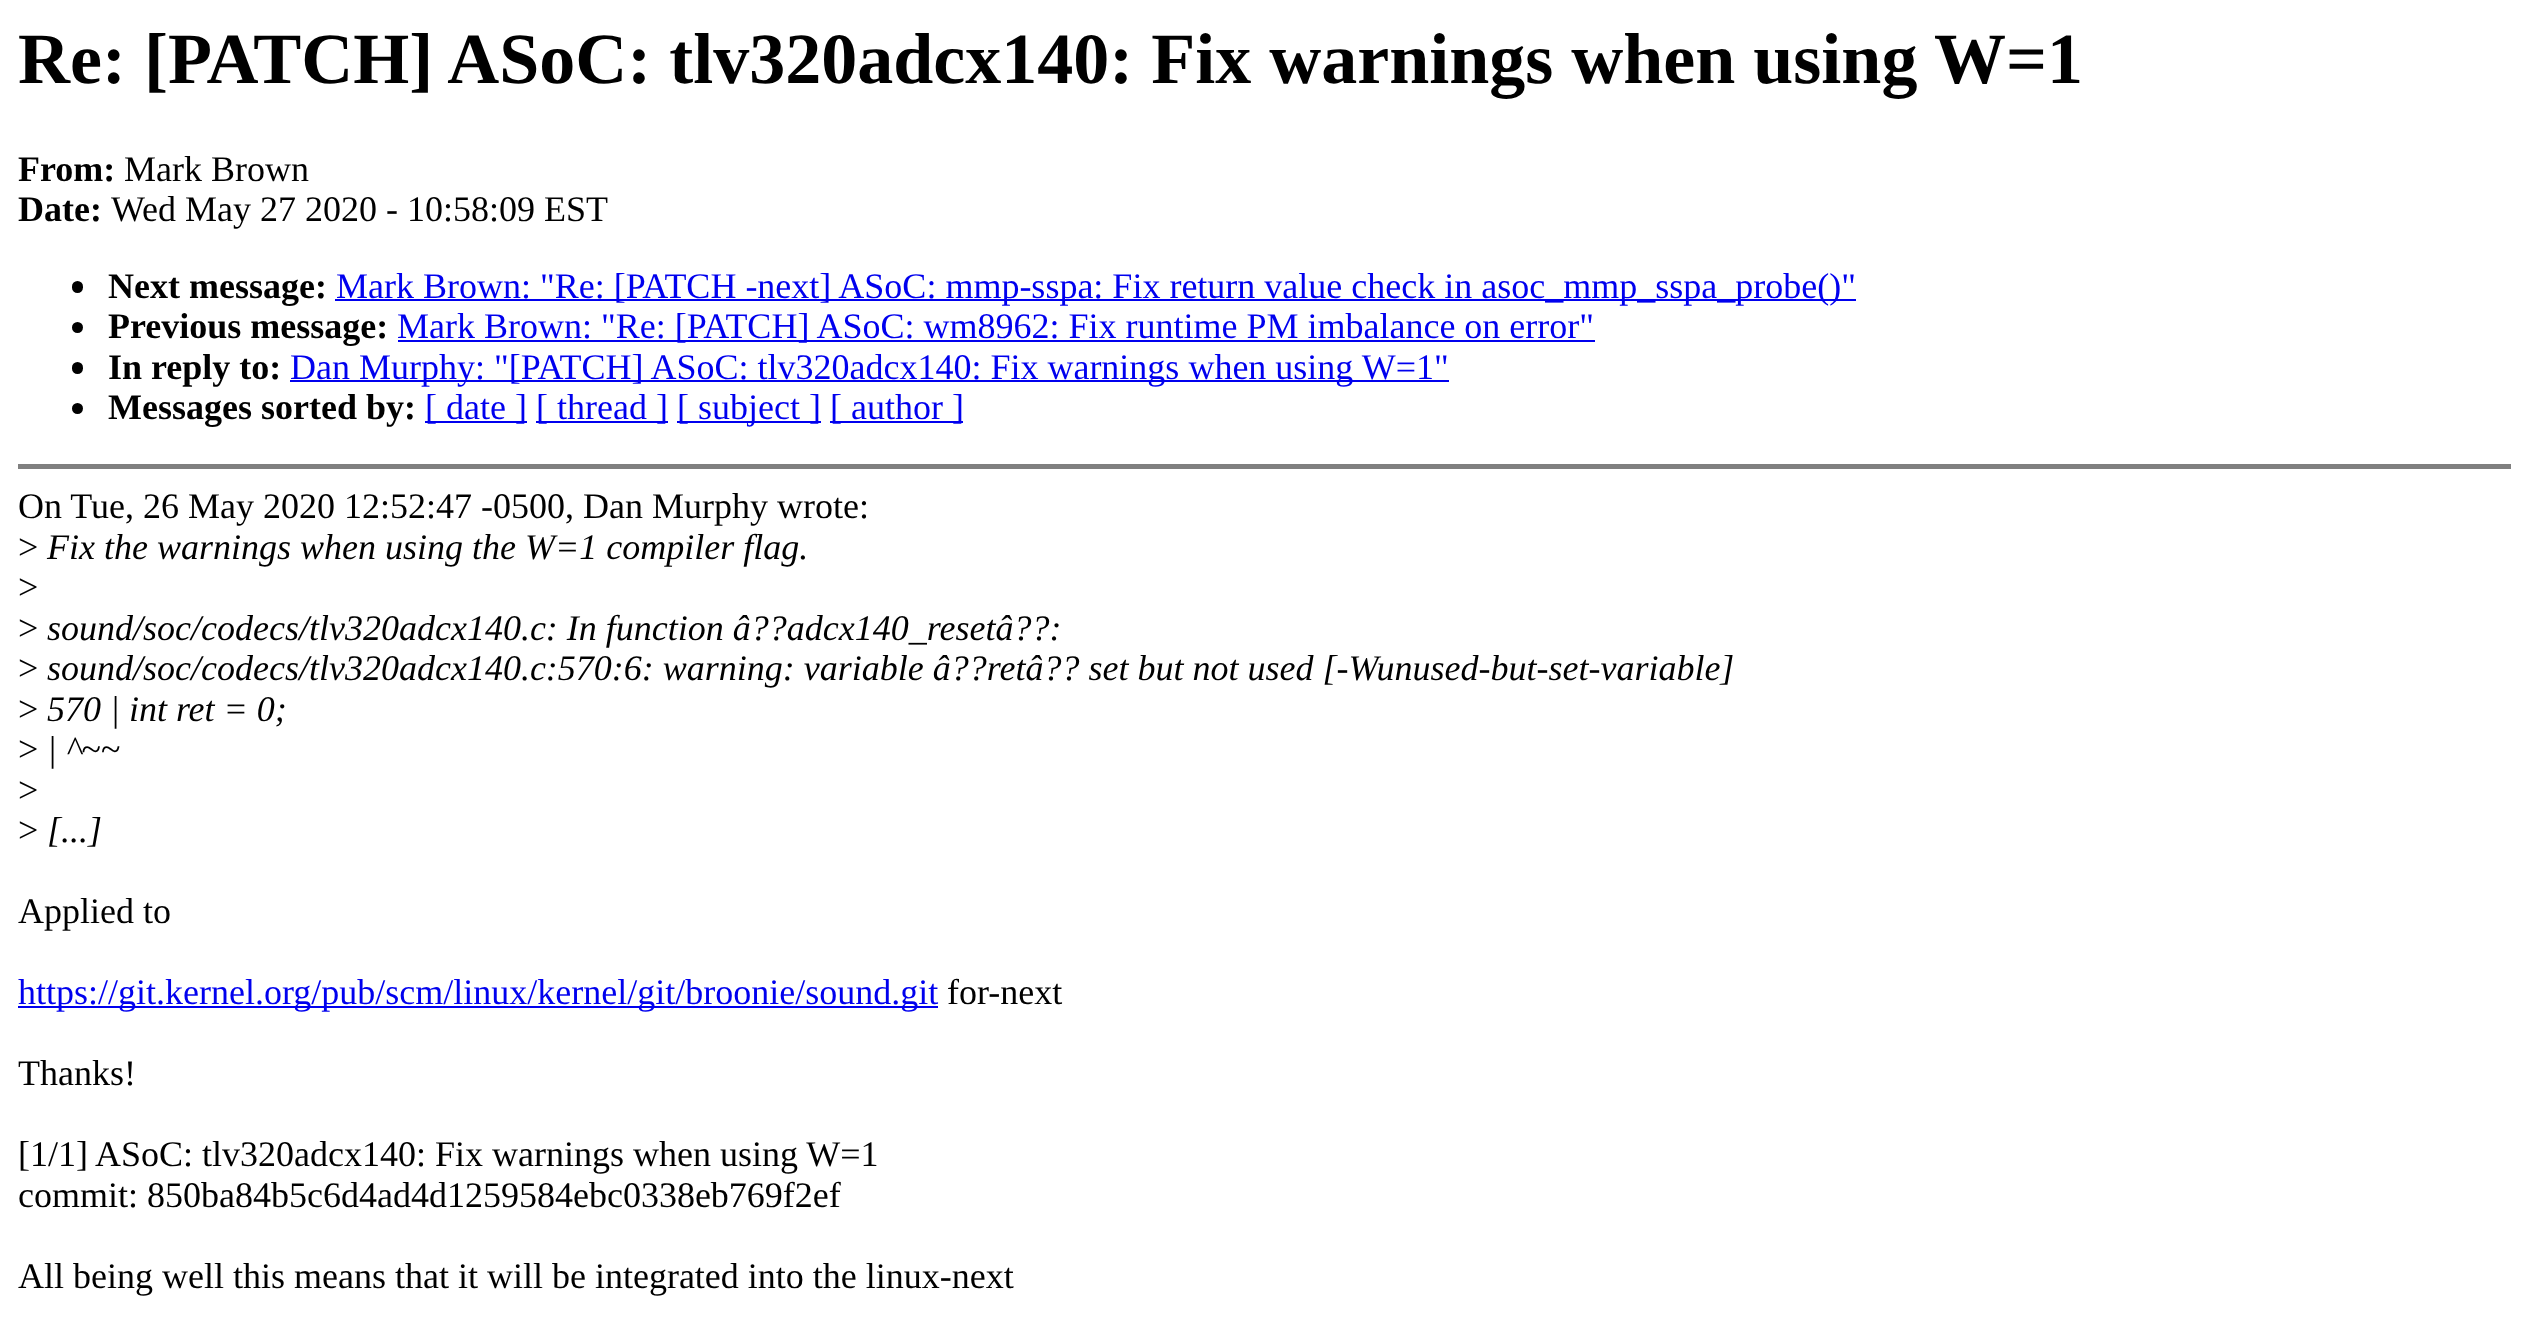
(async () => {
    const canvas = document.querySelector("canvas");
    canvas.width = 2527;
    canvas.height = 1319;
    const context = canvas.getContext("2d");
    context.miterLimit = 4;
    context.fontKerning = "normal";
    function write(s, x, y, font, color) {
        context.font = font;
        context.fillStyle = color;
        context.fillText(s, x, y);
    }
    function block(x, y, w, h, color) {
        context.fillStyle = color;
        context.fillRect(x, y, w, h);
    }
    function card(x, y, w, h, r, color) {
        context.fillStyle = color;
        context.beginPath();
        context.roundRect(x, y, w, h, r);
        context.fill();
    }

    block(0, 0, 2527, 1319, "rgb(255, 255, 255)");
    write("Re: [PATCH] ASoC: tlv320adcx140: Fix warnings when using W=1", 18, 83, "bold 72px Liberation Serif", "rgb(0, 0, 0)");
    write("From:", 18, 181, "bold 36px Liberation Serif", "rgb(0, 0, 0)");
    write("Mark Brown", 124, 181, "36px Liberation Serif", "rgb(0, 0, 0)");
    write("Date:", 18, 221, "bold 36px Liberation Serif", "rgb(0, 0, 0)");
    write("Wed May 27 2020 - 10:58:09 EST", 111, 221, "36px Liberation Serif", "rgb(0, 0, 0)");
    card(72, 281, 11, 12, 5.5, "rgb(0, 0, 0)");
    write("Next message:", 108, 298, "bold 36px Liberation Serif", "rgb(0, 0, 0)");
    block(335, 299, 1521, 2, "rgb(0, 0, 238)");
    write("Mark Brown: \"Re: [PATCH -next] ASoC: mmp-sspa: Fix return value check in asoc_mmp_sspa_probe()\"", 336, 298, "36px Liberation Serif", "rgb(0, 0, 238)");
    context.fillStyle = "rgb(0, 0, 0)";
    context.beginPath();
    context.arc(77.5, 327.5, 5.5, 0, Math.PI * 2);
    context.fill();
    write("Previous message:", 108, 338, "bold 36px Liberation Serif", "rgb(0, 0, 0)");
    block(398, 340, 1197, 2, "rgb(0, 0, 238)");
    write("Mark Brown: \"Re: [PATCH] ASoC: wm8962: Fix runtime PM imbalance on error\"", 397, 338, "36px Liberation Serif", "rgb(0, 0, 238)");
    card(72, 362, 11, 12, 5.5, "rgb(0, 0, 0)");
    write("In reply to:", 108, 379, "bold 36px Liberation Serif", "rgb(0, 0, 0)");
    block(290, 380, 1159, 2, "rgb(0, 0, 238)");
    write("Dan Murphy: \"[PATCH] ASoC: tlv320adcx140: Fix warnings when using W=1\"", 290, 379, "36px Liberation Serif", "rgb(0, 0, 238)");
    context.fillStyle = "rgb(0, 0, 0)";
    context.beginPath();
    context.arc(77.5, 408.5, 5.5, 0, Math.PI * 2);
    context.fill();
    write("Messages sorted by:", 108, 419, "bold 36px Liberation Serif", "rgb(0, 0, 0)");
    block(425, 421, 102, 2, "rgb(0, 0, 238)");
    write("[ date ]", 425, 419, "36px Liberation Serif", "rgb(0, 0, 238)");
    block(536, 421, 132, 2, "rgb(0, 0, 238)");
    write("[ thread ]", 536, 419, "36px Liberation Serif", "rgb(0, 0, 238)");
    block(677, 421, 144, 2, "rgb(0, 0, 238)");
    write("[ subject ]", 677, 419, "36px Liberation Serif", "rgb(0, 0, 238)");
    block(830, 421, 133, 2, "rgb(0, 0, 238)");
    write("[ author ]", 830, 419, "36px Liberation Serif", "rgb(0, 0, 238)");
    block(18, 464, 2493, 5, "rgb(128, 128, 128)");
    write("On Tue, 26 May 2020 12:52:47 -0500, Dan Murphy wrote:", 18, 518, "36px Liberation Serif", "rgb(0, 0, 0)");
    write(">", 18, 559, "36px Liberation Serif", "rgb(0, 0, 0)");
    write("Fix the warnings when using the W=1 compiler flag.", 47, 559, "italic 36px Liberation Serif", "rgb(0, 0, 0)");
    write(">", 18, 599, "36px Liberation Serif", "rgb(0, 0, 0)");
    write(">", 18, 640, "36px Liberation Serif", "rgb(0, 0, 0)");
    write("sound/soc/codecs/tlv320adcx140.c: In function â??adcx140_resetâ??:", 47, 640, "italic 36px Liberation Serif", "rgb(0, 0, 0)");
    write(">", 18, 680, "36px Liberation Serif", "rgb(0, 0, 0)");
    write("sound/soc/codecs/tlv320adcx140.c:570:6: warning: variable â??retâ?? set but not used [-Wunused-but-set-variable]", 47, 680, "italic 36px Liberation Serif", "rgb(0, 0, 0)");
    write(">", 18, 721, "36px Liberation Serif", "rgb(0, 0, 0)");
    write("570 | int ret = 0;", 47, 721, "italic 36px Liberation Serif", "rgb(0, 0, 0)");
    write(">", 18, 761, "36px Liberation Serif", "rgb(0, 0, 0)");
    write("| ^~~", 47, 761, "italic 36px Liberation Serif", "rgb(0, 0, 0)");
    write(">", 18, 802, "36px Liberation Serif", "rgb(0, 0, 0)");
    write(">", 18, 842, "36px Liberation Serif", "rgb(0, 0, 0)");
    write("[...]", 47, 842, "italic 36px Liberation Serif", "rgb(0, 0, 0)");
    write("Applied to", 18, 923, "36px Liberation Serif", "rgb(0, 0, 0)");
    block(18, 1006, 920, 2, "rgb(0, 0, 238)");
    write("https://git.kernel.org/pub/scm/linux/kernel/git/broonie/sound.git", 18, 1004, "36px Liberation Serif", "rgb(0, 0, 238)");
    write("for-next", 947, 1004, "36px Liberation Serif", "rgb(0, 0, 0)");
    write("Thanks!", 18, 1085, "36px Liberation Serif", "rgb(0, 0, 0)");
    write("[1/1] ASoC: tlv320adcx140: Fix warnings when using W=1", 18, 1166, "36px Liberation Serif", "rgb(0, 0, 0)");
    write("commit: 850ba84b5c6d4ad4d1259584ebc0338eb769f2ef", 18, 1207, "36px Liberation Serif", "rgb(0, 0, 0)");
    write("All being well this means that it will be integrated into the linux-next", 18, 1288, "36px Liberation Serif", "rgb(0, 0, 0)");
})();
